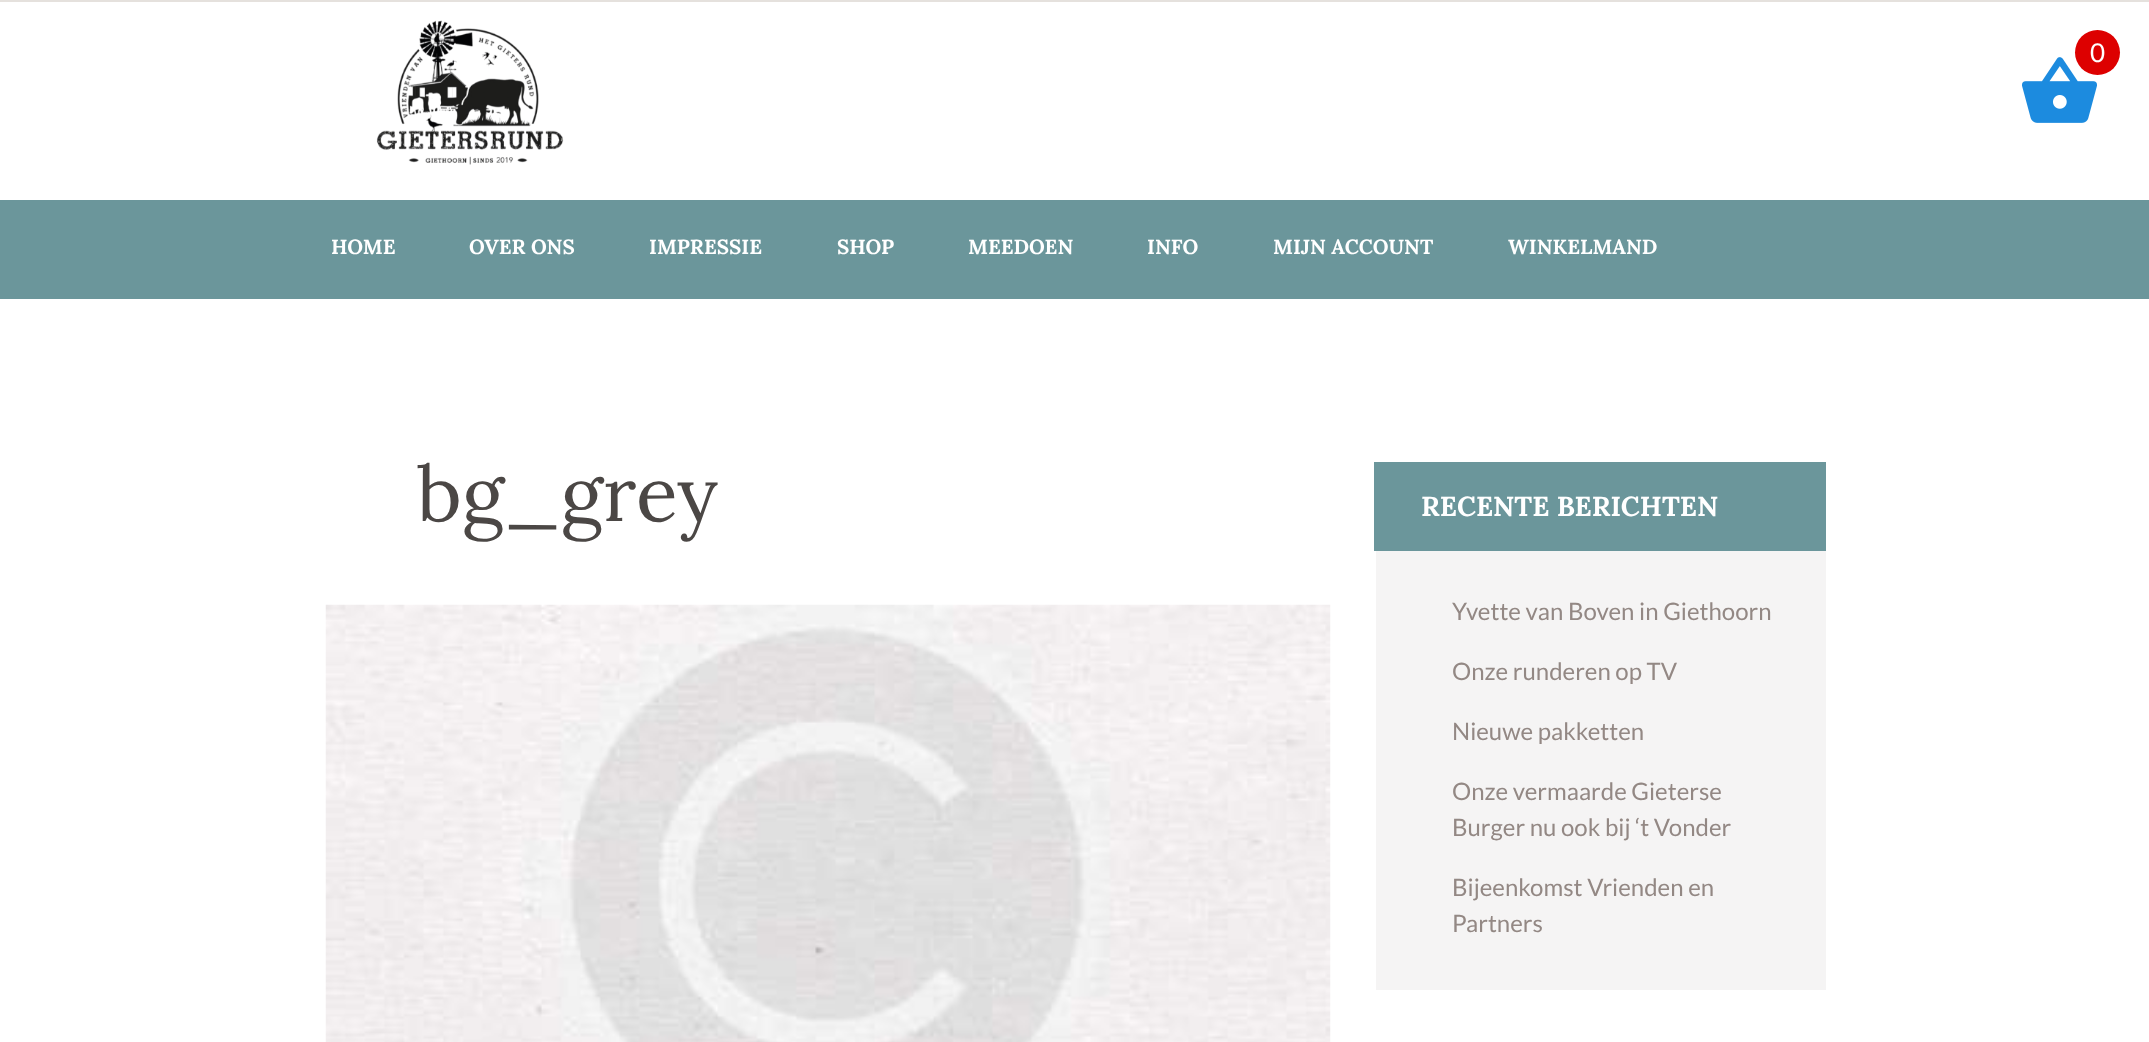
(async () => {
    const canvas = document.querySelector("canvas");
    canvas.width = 2149;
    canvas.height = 1042;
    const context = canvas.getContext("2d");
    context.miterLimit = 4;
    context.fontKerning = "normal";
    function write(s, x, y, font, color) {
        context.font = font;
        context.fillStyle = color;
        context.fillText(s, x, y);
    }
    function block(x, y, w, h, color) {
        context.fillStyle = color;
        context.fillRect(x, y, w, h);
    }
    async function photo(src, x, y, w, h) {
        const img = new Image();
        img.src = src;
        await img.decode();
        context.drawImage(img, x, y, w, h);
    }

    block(0, 0, 2149, 1042, "rgb(255, 255, 255)");
    await photo("media/1.png", 2022, 57, 75, 66);
    context.fillStyle = "rgb(221, 0, 0)";
    context.beginPath();
    context.arc(2097.5, 52.5, 22.5, 0, Math.PI * 2);
    context.fill();
    write("0", 2090, 62, "26px Lato", "rgb(255, 255, 255)");
    block(0, 0, 2149, 2, "rgb(229, 225, 221)");
    await photo("media/2.png", 376, 20, 188, 145);
    block(0, 200, 2149, 99, "rgb(107, 150, 155)");
    write("HOME", 331, 254, "bold 20.5px Lora", "rgb(255, 255, 255)");
    write("OVER ONS", 469, 254, "bold 20.5px Lora", "rgb(255, 255, 255)");
    write("IMPRESSIE", 649, 254, "bold 20.5px Lora", "rgb(255, 255, 255)");
    write("SHOP", 837, 254, "bold 20.5px Lora", "rgb(255, 255, 255)");
    write("MEEDOEN", 968, 254, "bold 20.5px Lora", "rgb(255, 255, 255)");
    write("INFO", 1147, 254, "bold 20.5px Lora", "rgb(255, 255, 255)");
    write("MIJN ACCOUNT", 1273, 254, "bold 20.5px Lora", "rgb(255, 255, 255)");
    write("WINKELMAND", 1508, 254, "bold 20.5px Lora", "rgb(255, 255, 255)");
    write("bg_grey", 417, 521, "77px Lora", "rgb(75, 71, 69)");
    await photo("media/3.png", 325, 604, 1006, 438);
    block(1376, 551, 450, 439, "rgb(245, 244, 244)");
    block(1374, 462, 452, 89, "rgb(107, 150, 155)");
    write("RECENTE BERICHTEN", 1421, 516, "bold 27.5px Lora", "rgb(255, 255, 255)");
    write("Yvette van Boven in Giethoorn", 1452, 620, "24px Lato", "rgb(147, 136, 132)");
    write("Onze runderen op TV", 1452, 680, "24px Lato", "rgb(147, 136, 132)");
    write("Nieuwe pakketten", 1452, 740, "24px Lato", "rgb(147, 136, 132)");
    write("Onze vermaarde Gieterse", 1452, 800, "24px Lato", "rgb(147, 136, 132)");
    write("Burger nu ook bij ‘t Vonder", 1452, 836, "24px Lato", "rgb(147, 136, 132)");
    write("Bijeenkomst Vrienden en", 1452, 896, "24px Lato", "rgb(147, 136, 132)");
    write("Partners", 1452, 932, "24px Lato", "rgb(147, 136, 132)");
})();
